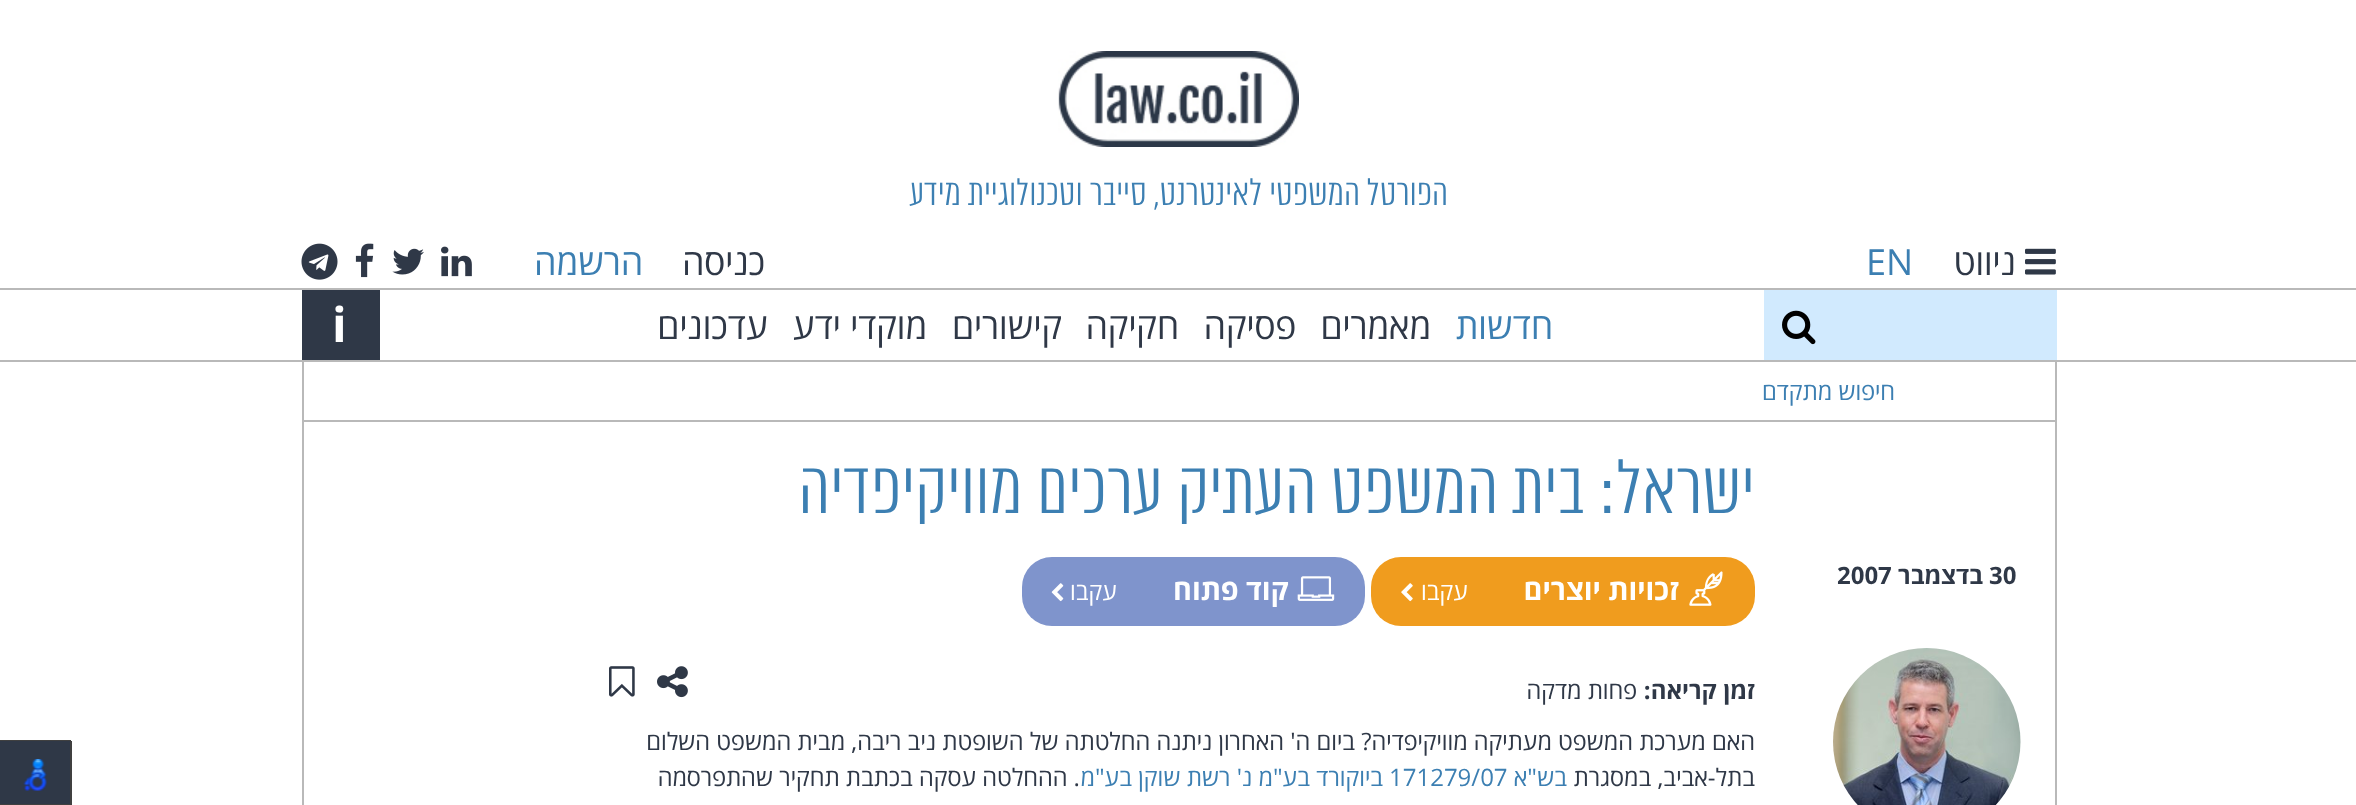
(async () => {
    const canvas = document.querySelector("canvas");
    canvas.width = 2356;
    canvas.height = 805;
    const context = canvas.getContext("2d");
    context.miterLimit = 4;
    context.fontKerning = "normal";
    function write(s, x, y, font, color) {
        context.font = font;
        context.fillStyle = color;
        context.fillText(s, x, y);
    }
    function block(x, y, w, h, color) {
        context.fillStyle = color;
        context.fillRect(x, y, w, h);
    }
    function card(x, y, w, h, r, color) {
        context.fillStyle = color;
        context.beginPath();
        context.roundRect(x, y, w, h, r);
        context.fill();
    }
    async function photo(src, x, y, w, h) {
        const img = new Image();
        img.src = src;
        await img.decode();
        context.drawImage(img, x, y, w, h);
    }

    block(0, 0, 2356, 805, "rgb(255, 255, 255)");
    await photo("media/1.png", 1058, 51, 241, 96);
    context.direction = "rtl";
    write("הפורטל המשפטי לאינטרנט, סייבר וטכנולוגיית מידע", 1448, 205, "300 36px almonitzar", "rgb(60, 127, 178)");
    await photo("media/2.png", 2025, 248, 31, 27);
    write("ניווט", 2016, 275, "36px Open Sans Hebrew", "rgb(47, 56, 71)");
    context.direction = "ltr";
    write("EN", 1866, 275, "36px Open Sans Hebrew", "rgb(60, 127, 178)");
    context.direction = "rtl";
    write("כניסה", 765, 275, "36px Open Sans Hebrew", "rgb(47, 56, 71)");
    write("הרשמה", 643, 275, "36px Open Sans Hebrew", "rgb(60, 127, 178)");
    await photo("media/3.png", 441, 246, 31, 31);
    await photo("media/4.png", 392, 248, 32, 27);
    await photo("media/5.png", 355, 243, 19, 35);
    await photo("media/6.png", 301, 243, 37, 37);
    block(0, 288, 2356, 2, "rgb(185, 185, 185)");
    block(0, 360, 2356, 2, "rgb(185, 185, 185)");
    block(1764, 290, 293, 70, "rgb(209, 234, 254)");
    await photo("media/7.png", 1782, 310, 34, 35);
    write("חדשות", 1553, 339, "36px Open Sans Hebrew", "rgb(60, 127, 178)");
    write("מאמרים", 1431, 339, "36px Open Sans Hebrew", "rgb(47, 56, 71)");
    write("פסיקה", 1296, 339, "36px Open Sans Hebrew", "rgb(47, 56, 71)");
    write("חקיקה", 1179, 339, "36px Open Sans Hebrew", "rgb(47, 56, 71)");
    write("קישורים", 1062, 339, "36px Open Sans Hebrew", "rgb(47, 56, 71)");
    write("מוקדי ידע", 927, 339, "36px Open Sans Hebrew", "rgb(47, 56, 71)");
    write("עדכונים", 768, 339, "36px Open Sans Hebrew", "rgb(47, 56, 71)");
    block(302, 290, 78, 70, "rgb(47, 56, 71)");
    context.direction = "ltr";
    write("i", 332, 342, "bold 48px Open Sans Hebrew", "rgb(255, 255, 255)");
    block(2055, 362, 2, 443, "rgb(185, 185, 185)");
    block(302, 420, 1755, 2, "rgb(185, 185, 185)");
    block(302, 362, 2, 443, "rgb(185, 185, 185)");
    context.direction = "rtl";
    write("חיפוש מתקדם", 1895, 400, "24px Open Sans Hebrew", "rgb(60, 127, 178)");
    write("ישראל: בית המשפט העתיק ערכים מוויקיפדיה", 1755, 513, "300 72px almonitzar", "rgb(60, 127, 178)");
    context.direction = "ltr";
    write("30", 1989, 584, "bold 24px Open Sans Hebrew", "rgb(47, 56, 71)");
    context.direction = "rtl";
    write("בדצמבר", 1983, 584, "bold 24px Open Sans Hebrew", "rgb(47, 56, 71)");
    context.direction = "ltr";
    write("2007", 1837, 584, "bold 24px Open Sans Hebrew", "rgb(47, 56, 71)");
    card(1371, 557, 384, 69, 30, "rgb(240, 156, 30)");
    await photo("media/8.png", 1689, 571, 34, 35);
    context.direction = "rtl";
    write("זכויות יוצרים", 1679, 600, "bold 28.75px Open Sans Hebrew", "rgb(255, 255, 255)");
    write("עקבו", 1468, 600, "24px Open Sans Hebrew", "rgb(255, 255, 255)");
    await photo("media/9.png", 1401, 583, 12, 19);
    card(1022, 557, 343, 69, 30, "rgb(127, 148, 204)");
    await photo("media/10.png", 1297, 576, 38, 25);
    write("קוד פתוח", 1289, 600, "bold 28.75px Open Sans Hebrew", "rgb(255, 255, 255)");
    write("עקבו", 1117, 600, "24px Open Sans Hebrew", "rgb(255, 255, 255)");
    await photo("media/11.png", 1051, 583, 13, 19);
    await photo("media/12.png", 1833, 648, 188, 157);
    write("זמן קריאה:", 1755, 699, "bold 24px Open Sans Hebrew", "rgb(47, 56, 71)");
    write("פחות מדקה", 1637, 699, "24px Open Sans Hebrew", "rgb(47, 56, 71)");
    await photo("media/13.png", 657, 666, 31, 32);
    await photo("media/14.png", 609, 666, 26, 31);
    write("האם מערכת המשפט מעתיקה מוויקיפדיה? ביום ה' האחרון ניתנה החלטתה של השופטת ניב ריבה, מבית המשפט השלום", 1755, 750, "24px Open Sans Hebrew", "rgb(47, 56, 71)");
    write("בתל-אביב, במסגרת", 1755, 786, "24px Open Sans Hebrew", "rgb(47, 56, 71)");
    write("בש\"א", 1567, 786, "24px Open Sans Hebrew", "rgb(60, 127, 178)");
    context.direction = "ltr";
    write("171279/07", 1389, 786, "24px Open Sans Hebrew", "rgb(60, 127, 178)");
    context.direction = "rtl";
    write("ביוקורד בע\"מ נ' רשת שוקן בע\"מ", 1383, 786, "24px Open Sans Hebrew", "rgb(60, 127, 178)");
    write(". ההחלטה עסקה בכתבת תחקיר שהתפרסמה", 1080, 786, "24px Open Sans Hebrew", "rgb(47, 56, 71)");
    context.fillStyle = "rgb(64, 64, 64)";
    context.beginPath();
    context.moveTo(-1, 740);
    context.lineTo(-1, 804);
    context.lineTo(0, 804);
    context.lineTo(0, 741);
    context.lineTo(71, 741);
    context.lineTo(71, 740);
    context.closePath();
    context.fill();
    block(0, 741, 70, 63, "rgb(47, 56, 71)");
    context.save();
    context.beginPath();
    context.rect(0, 741, 72, 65);
    context.clip();
    context.fillStyle = "rgb(64, 64, 64)";
    context.beginPath();
    context.moveTo(-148, 592);
    context.lineTo(220, 592);
    context.lineTo(220, 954);
    context.lineTo(-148, 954);
    context.closePath();
    context.moveTo(-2, 740);
    context.lineTo(70, 740);
    context.lineTo(70, 804);
    context.lineTo(-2, 804);
    context.closePath();
    context.fill("evenodd");
    context.restore();
    await photo("media/15.png", 23, 759, 24, 32);
})();
